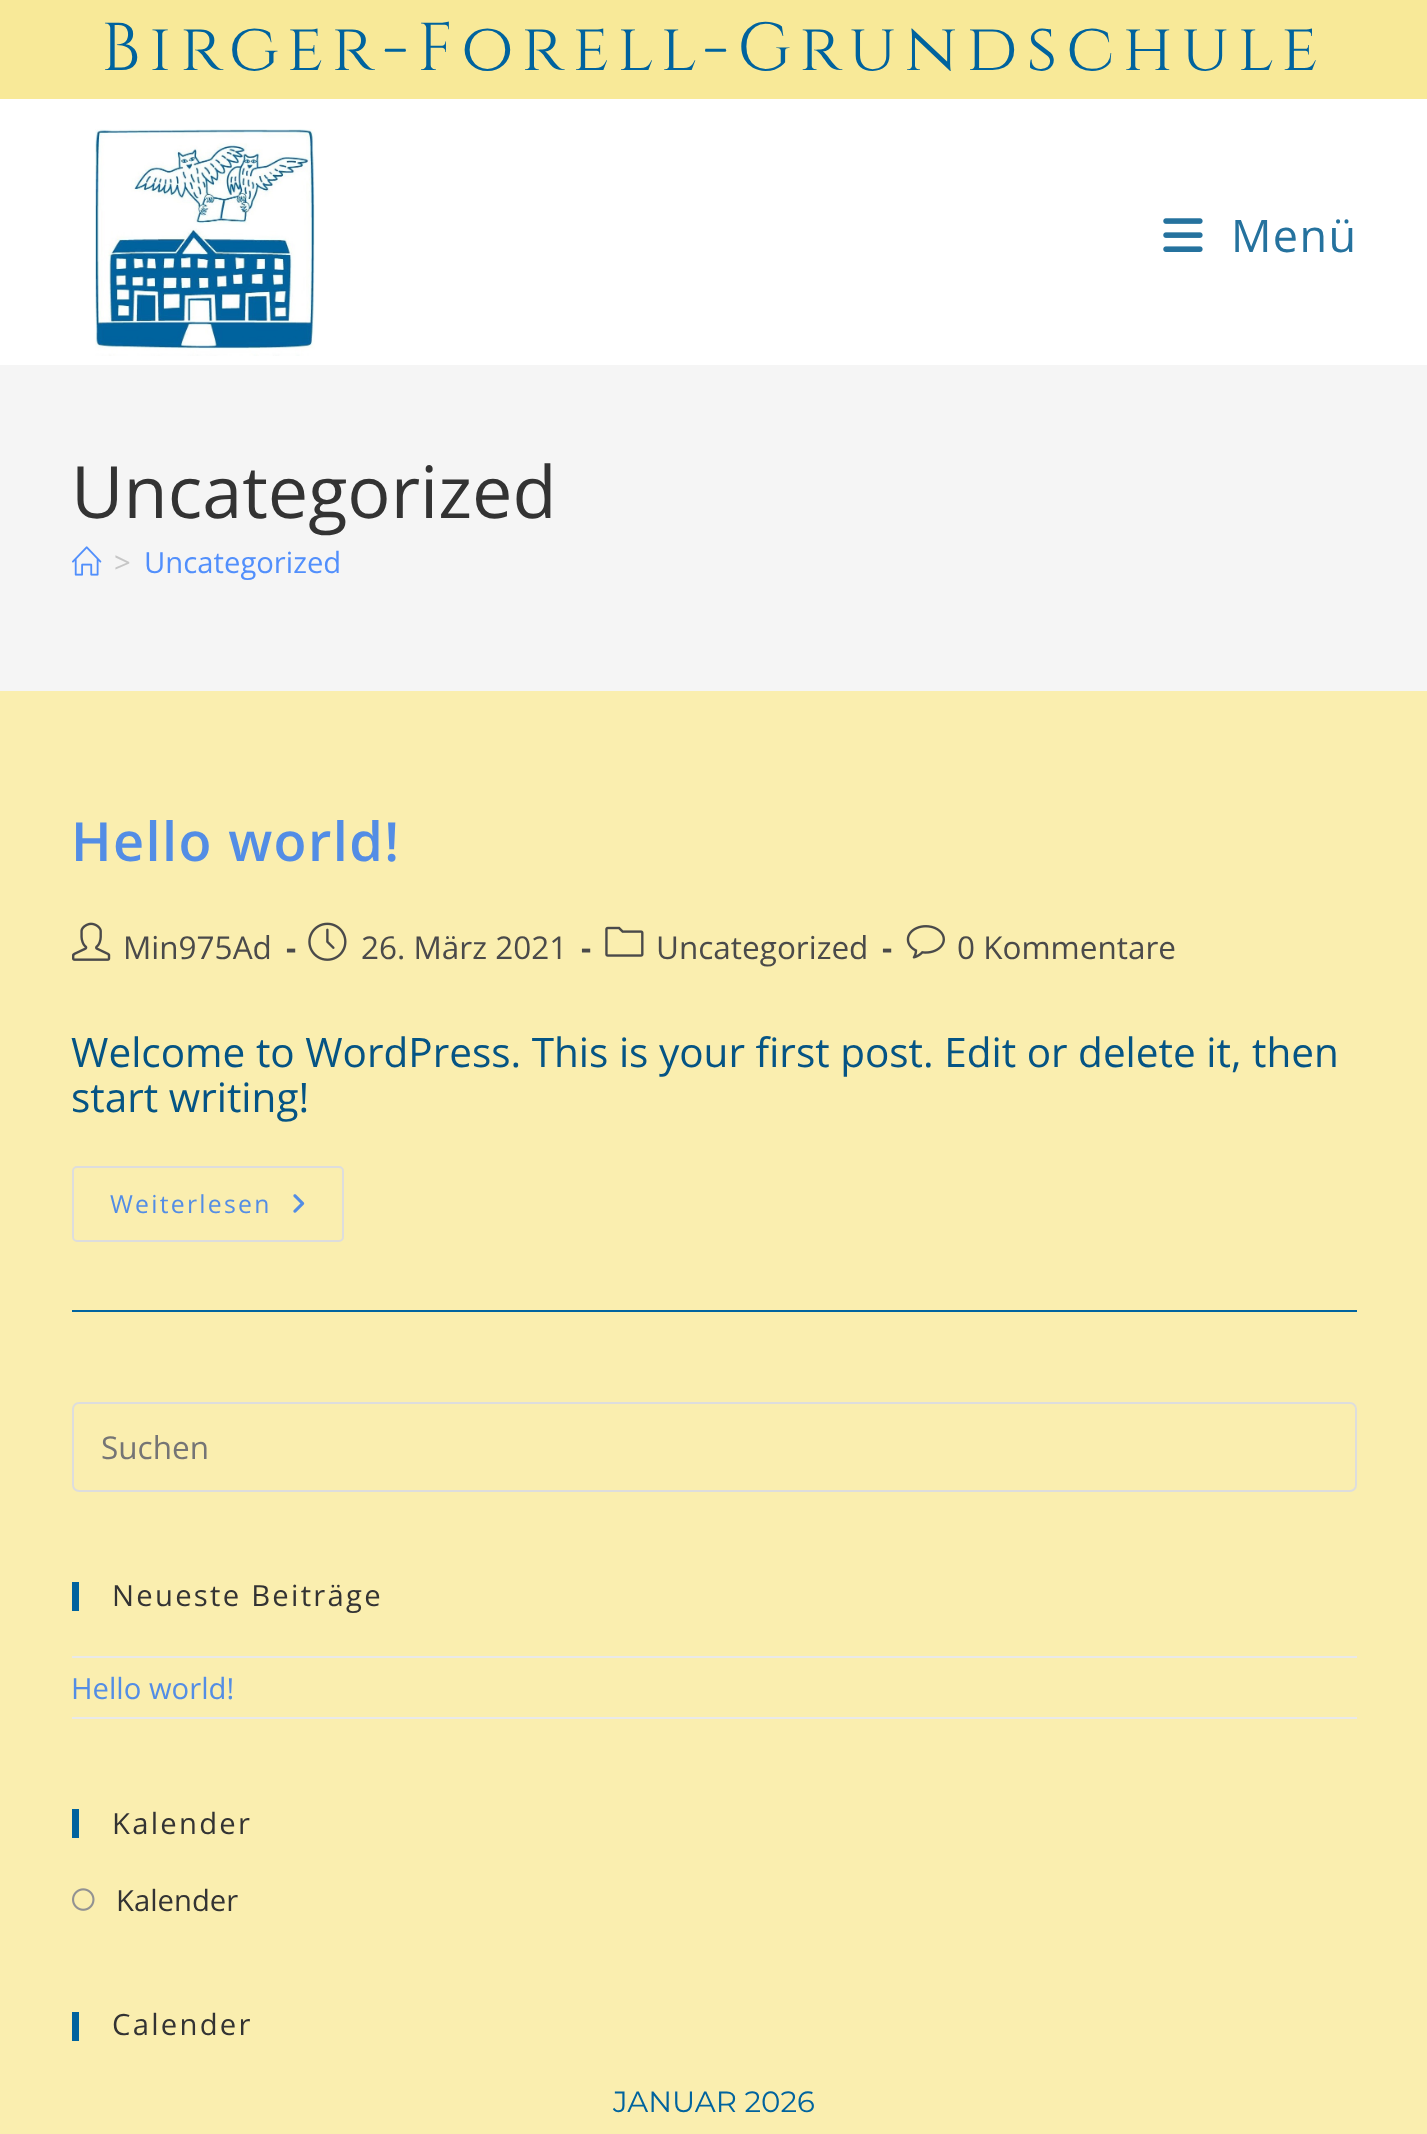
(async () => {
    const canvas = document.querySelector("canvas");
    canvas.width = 1427;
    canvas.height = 2134;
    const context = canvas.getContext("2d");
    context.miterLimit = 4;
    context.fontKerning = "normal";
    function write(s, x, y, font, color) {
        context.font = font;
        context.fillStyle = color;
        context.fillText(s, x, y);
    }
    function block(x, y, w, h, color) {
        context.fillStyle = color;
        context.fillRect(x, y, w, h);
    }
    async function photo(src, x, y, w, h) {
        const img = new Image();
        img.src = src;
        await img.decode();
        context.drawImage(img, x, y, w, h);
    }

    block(0, 0, 1427, 2134, "rgb(250, 238, 175)");
    block(0, 0, 1427, 99, "rgb(248, 233, 152)");
    block(0, 99, 1427, 266, "rgb(255, 255, 255)");
    context.letterSpacing = "8.75px";
    write("Birger-Forell-Grundschule", 101, 70, "67.5px Cinzel", "rgb(0, 99, 158)");
    await photo("media/1.png", 95, 129, 220, 227);
    await photo("media/2.png", 1163, 218, 40, 34);
    context.letterSpacing = "1.4px";
    write("Menü", 1231, 252, "45px Open Sans", "rgb(37, 114, 158)");
    block(0, 365, 1427, 326, "rgb(245, 245, 245)");
    context.letterSpacing = "0px";
    write("Uncategorized", 71, 518, "72px Open Sans", "rgb(51, 51, 51)");
    await photo("media/3.png", 72, 546, 30, 30);
    write(">", 114, 573, "29.25px Open Sans", "rgb(198, 198, 198)");
    write("Uncategorized", 144, 573, "29.25px Open Sans", "rgb(81, 143, 252)");
    block(72, 1310, 1285, 2, "rgb(1, 100, 159)");
    context.letterSpacing = "1.4px";
    write("Hello world!", 71, 861, "600 54px Open Sans", "rgb(83, 141, 229)");
    await photo("media/4.png", 72, 922, 39, 39);
    context.letterSpacing = "0px";
    write("Min975Ad", 123, 959, "31.5px Open Sans", "rgb(74, 74, 74)");
    write("-", 286, 959, "bold 31.5px Open Sans", "rgb(74, 74, 74)");
    await photo("media/5.png", 308, 922, 39, 39);
    write("26. März 2021", 361, 959, "31.5px Open Sans", "rgb(74, 74, 74)");
    write("-", 581, 959, "bold 31.5px Open Sans", "rgb(74, 74, 74)");
    await photo("media/6.png", 605, 926, 39, 31);
    write("Uncategorized", 656, 959, "31.5px Open Sans", "rgb(74, 74, 74)");
    write("-", 882, 959, "bold 31.5px Open Sans", "rgb(74, 74, 74)");
    await photo("media/7.png", 906, 925, 39, 34);
    write("0 Kommentare", 957, 959, "31.5px Open Sans", "rgb(74, 74, 74)");
    write("Welcome to WordPress. This is your first post. Edit or delete it, then", 71, 1067, "40.5px Open Sans", "rgb(5, 84, 132)");
    write("start writing!", 71, 1112, "40.5px Open Sans", "rgb(5, 84, 132)");
    context.beginPath();
    context.roundRect(73, 1167, 270, 74, 4);
    context.strokeStyle = "rgb(221, 221, 221)";
    context.lineWidth = 2;
    context.stroke();
    context.letterSpacing = "2.25px";
    write("Weiterlesen", 110, 1213, "24.75px Open Sans", "rgb(83, 141, 229)");
    await photo("media/8.png", 293, 1194, 12, 19);
    context.beginPath();
    context.roundRect(73, 1403, 1283, 88, 6);
    context.stroke();
    context.letterSpacing = "0px";
    write("Suchen", 101, 1459, "31.5px Open Sans", "rgb(117, 117, 117)");
    block(72, 1582, 7, 29, "rgb(0, 99, 158)");
    context.letterSpacing = "2.25px";
    write("Neueste Beiträge", 112, 1606, "29.25px Open Sans", "rgb(51, 51, 51)");
    block(72, 1656, 1285, 2, "rgb(233, 233, 233)");
    block(72, 1717, 1285, 2, "rgb(233, 233, 233)");
    context.letterSpacing = "0px";
    write("Hello world!", 71, 1699, "29.25px Open Sans", "rgb(83, 141, 229)");
    block(72, 1809, 7, 29, "rgb(0, 99, 158)");
    context.letterSpacing = "2.25px";
    write("Kalender", 112, 1834, "29.25px Open Sans", "rgb(51, 51, 51)");
    await photo("media/9.png", 72, 1888, 23, 23);
    context.letterSpacing = "0px";
    write("Kalender", 116, 1911, "29.25px Open Sans", "rgb(51, 51, 51)");
    block(72, 2012, 7, 29, "rgb(0, 99, 158)");
    context.letterSpacing = "2.25px";
    write("Calender", 112, 2035, "29.25px Open Sans", "rgb(51, 51, 51)");
    context.letterSpacing = "0px";
    write("JANUAR 2026", 613, 2112, "29.25px Montserrat", "rgb(0, 99, 158)");
})();
